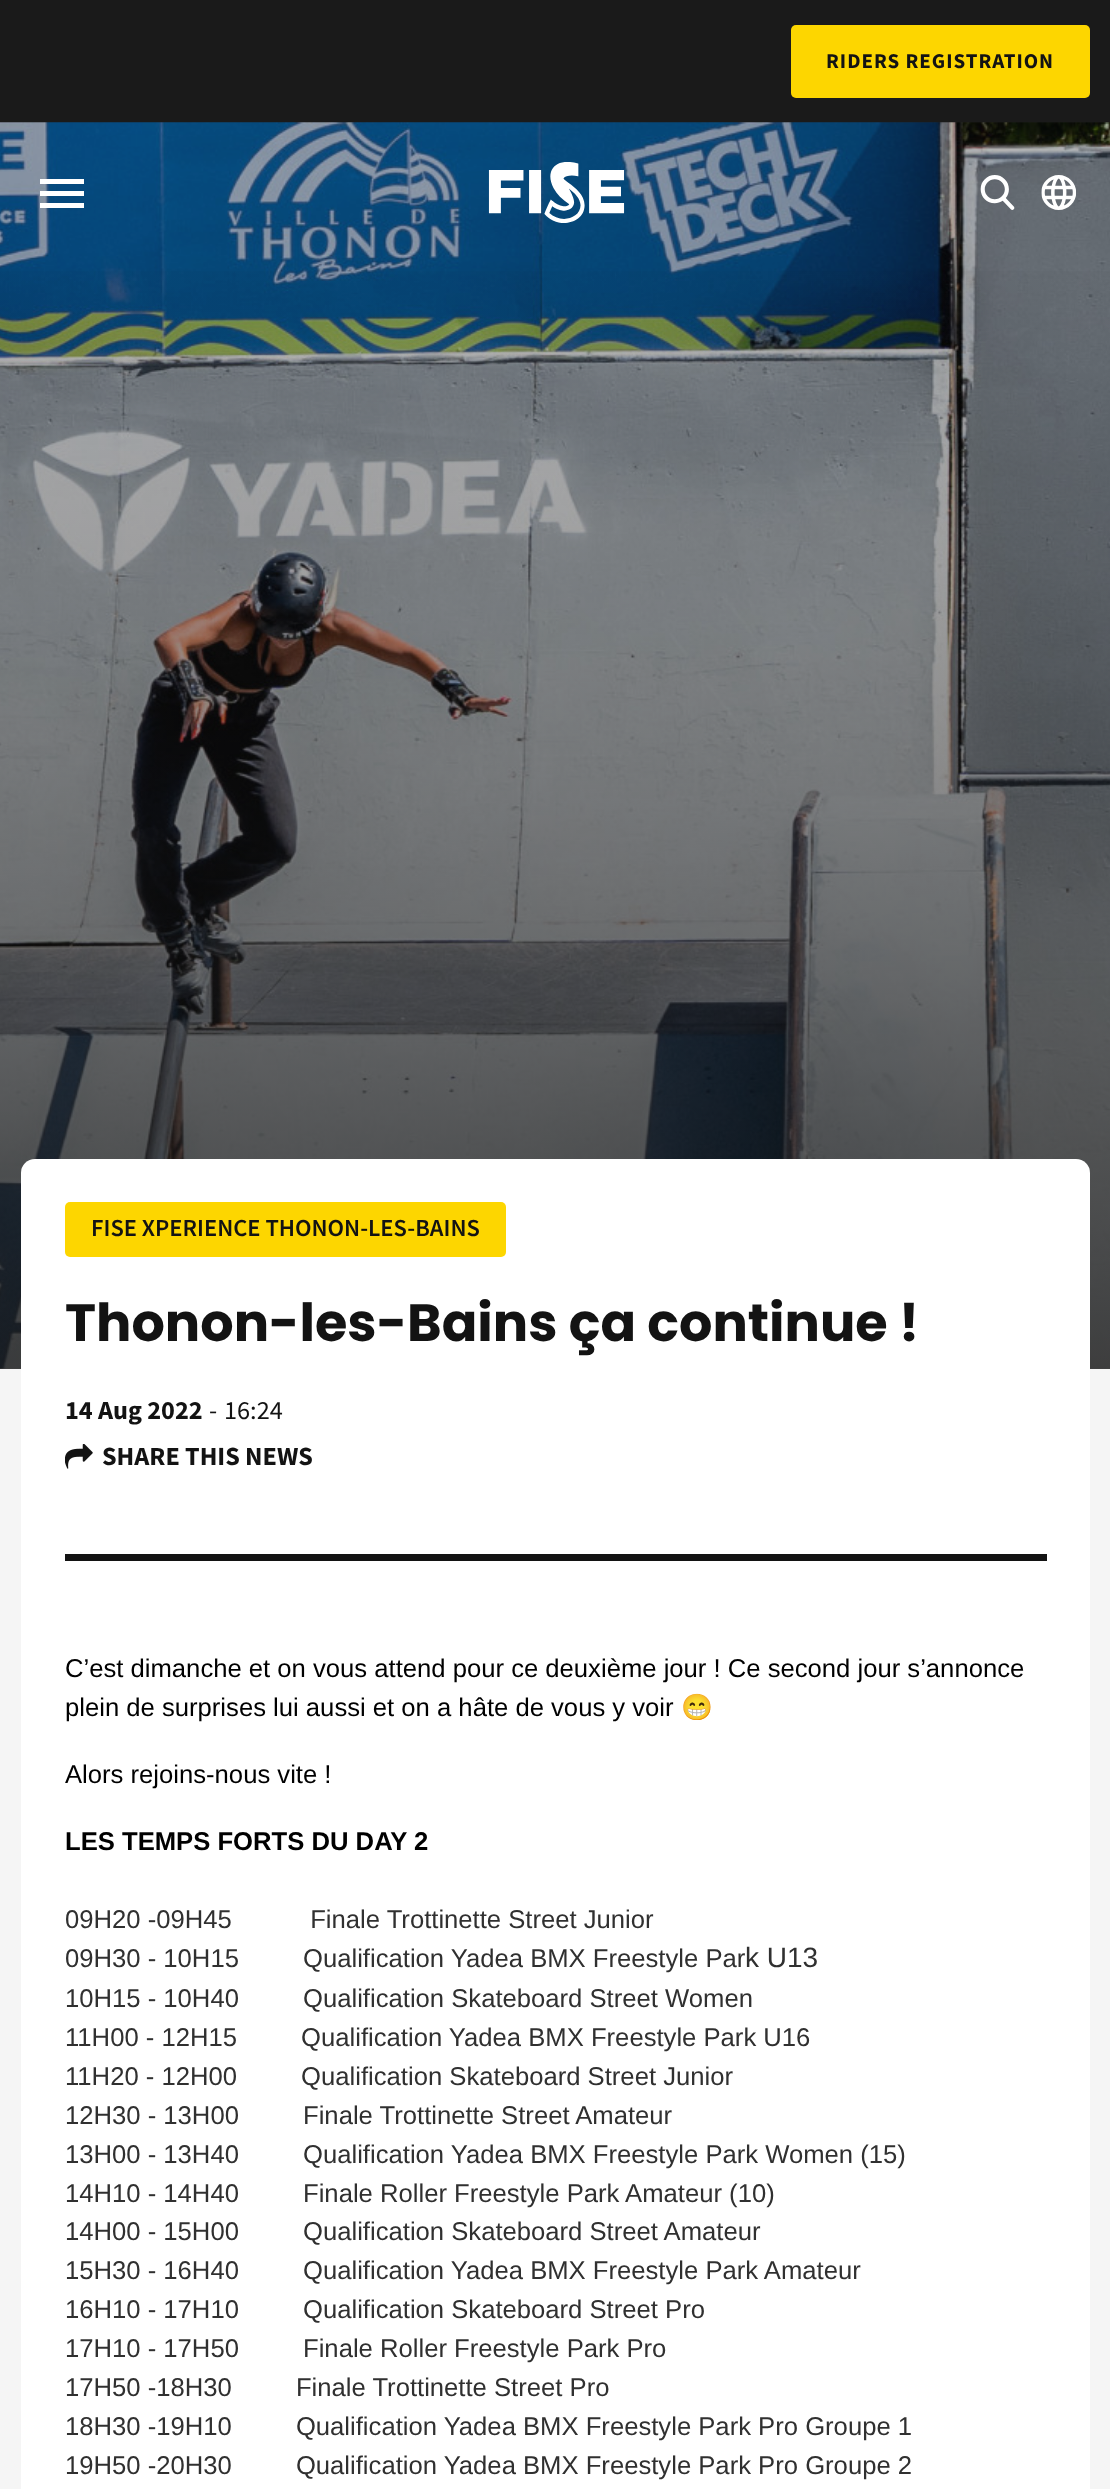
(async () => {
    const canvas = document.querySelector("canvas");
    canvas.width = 1110;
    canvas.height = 2489;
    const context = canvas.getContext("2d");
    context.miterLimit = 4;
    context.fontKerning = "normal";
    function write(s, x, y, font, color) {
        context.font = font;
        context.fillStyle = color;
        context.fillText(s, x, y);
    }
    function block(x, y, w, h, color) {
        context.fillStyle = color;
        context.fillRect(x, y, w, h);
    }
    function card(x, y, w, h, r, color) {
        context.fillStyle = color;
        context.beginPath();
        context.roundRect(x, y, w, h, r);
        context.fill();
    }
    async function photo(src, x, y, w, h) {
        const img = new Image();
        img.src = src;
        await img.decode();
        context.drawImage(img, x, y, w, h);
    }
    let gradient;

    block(0, 0, 1110, 2489, "rgb(184, 184, 184)");
    block(0, 0, 1110, 123, "rgb(26, 26, 26)");
    card(791, 25, 299, 73, 5, "rgb(253, 214, 0)");
    context.letterSpacing = "1px";
    write("RIDERS REGISTRATION", 826, 68, "bold 21px Source Sans Pro", "rgb(19, 19, 19)");
    await photo("media/1.png", 0, 122, 1110, 1247);
    gradient = context.createLinearGradient(556, 1369, 556, 123);
    gradient.addColorStop(0, "rgba(19, 19, 19, 0.7)");
    gradient.addColorStop(0.19, "rgba(18, 18, 18, 0.52)");
    gradient.addColorStop(0.34, "rgba(18, 18, 18, 0.38)");
    gradient.addColorStop(0.47, "rgba(18, 18, 18, 0.27)");
    gradient.addColorStop(0.56, "rgba(18, 18, 18, 0.2)");
    gradient.addColorStop(0.65, "rgba(18, 18, 18, 0.13)");
    gradient.addColorStop(0.73, "rgba(18, 18, 18, 0.09)");
    gradient.addColorStop(0.8, "rgba(18, 18, 18, 0.05)");
    gradient.addColorStop(0.86, "rgba(18, 18, 18, 0.03)");
    gradient.addColorStop(0.91, "rgba(18, 18, 18, 0.01)");
    gradient.addColorStop(0.95, "rgba(18, 18, 18, 0.01)");
    gradient.addColorStop(0.98, "rgba(18, 18, 18, 0)");
    gradient.addColorStop(1, "rgba(18, 18, 18, 0)");
    context.fillStyle = gradient;
    context.fillRect(0, 271, 1110, 1098);
    block(40, 191, 44, 5, "rgb(255, 255, 255)");
    block(40, 179, 44, 5, "rgb(255, 255, 255)");
    block(40, 203, 44, 5, "rgb(255, 255, 255)");
    await photo("media/2.png", 488, 162, 137, 61);
    await photo("media/3.png", 980, 175, 35, 35);
    await photo("media/4.png", 1041, 175, 35, 35);
    block(0, 1369, 1110, 1120, "rgb(245, 245, 245)");
    card(21, 1159, 1069, 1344, 14, "rgb(255, 255, 255)");
    card(65, 1202, 441, 55, 5, "rgb(253, 214, 0)");
    context.letterSpacing = "0px";
    write("FISE XPERIENCE THONON-LES-BAINS", 91, 1236, "600 24.5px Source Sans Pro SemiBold", "rgb(19, 19, 19)");
    write("Thonon-les-Bains ça continue !", 65, 1341, "bold 52.5px Poppins", "rgb(19, 19, 19)");
    write("14 Aug 2022", 65, 1419, "bold 26.25px Source Sans Pro", "rgb(19, 19, 19)");
    write("-", 209, 1419, "26.25px Source Sans Pro", "rgb(19, 19, 19)");
    write("16:24", 224, 1419, "26.25px Source Sans Pro", "rgb(19, 19, 19)");
    await photo("media/5.png", 65, 1444, 28, 25);
    write("SHARE THIS NEWS", 102, 1465, "bold 26.25px Source Sans Pro", "rgb(19, 19, 19)");
    block(65, 1554, 982, 7, "rgb(19, 19, 19)");
    write("C’est dimanche et on vous attend pour ce deuxième jour ! Ce second jour s’annonce", 65, 1677, "25.65px Liberation Sans", "rgb(0, 0, 0)");
    write("plein de surprises lui aussi et on a hâte de vous y voir", 65, 1716, "25.65px Liberation Sans", "rgb(0, 0, 0)");
    write("😁", 681, 1716, "25.65px Noto Color Emoji", "rgb(0, 0, 0)");
    write("Alors rejoins-nous vite !", 65, 1783, "25.65px Liberation Sans", "rgb(0, 0, 0)");
    write("LES TEMPS FORTS DU DAY 2", 65, 1850, "bold 25.65px Liberation Sans", "rgb(0, 0, 0)");
    write("09H20 -09H45           Finale Trottinette Street Junior", 65, 1928, "25.65px Liberation Sans", "rgb(48, 48, 48)");
    write("09H30 - 10H15         Qualification Yadea BMX Freestyle Par", 65, 1967, "25.65px Liberation Sans", "rgb(48, 48, 48)");
    write("k U13", 745, 1967, "28px Liberation Sans", "rgb(48, 48, 48)");
    write("10H15 - 10H40         Qualification Skateboard Street Women", 65, 2007, "25.65px Liberation Sans", "rgb(48, 48, 48)");
    write("11H00 - 12H15         Qualification Yadea BMX Freestyle Park U16", 65, 2046, "25.65px Liberation Sans", "rgb(48, 48, 48)");
    write("11H20 - 12H00         Qualification Skateboard Street Junior", 65, 2085, "25.65px Liberation Sans", "rgb(48, 48, 48)");
    write("12H30 - 13H00         Finale Trottinette Street Amateur", 65, 2124, "25.65px Liberation Sans", "rgb(48, 48, 48)");
    write("13H00 - 13H40         Qualification Yadea BMX Freestyle Park Women (15)", 65, 2163, "25.65px Liberation Sans", "rgb(48, 48, 48)");
    write("14H10 - 14H40         Finale Roller Freestyle Park Amateur (10)", 65, 2202, "25.65px Liberation Sans", "rgb(48, 48, 48)");
    write("14H00 - 15H00         Qualification Skateboard Street Amateur", 65, 2240, "25.65px Liberation Sans", "rgb(48, 48, 48)");
    write("15H30 - 16H40         Qualification Yadea BMX Freestyle Park Amateur", 65, 2279, "25.65px Liberation Sans", "rgb(48, 48, 48)");
    write("16H10 - 17H10         Qualification Skateboard Street Pro", 65, 2318, "25.65px Liberation Sans", "rgb(48, 48, 48)");
    write("17H10 - 17H50         Finale Roller Freestyle Park Pro", 65, 2357, "25.65px Liberation Sans", "rgb(48, 48, 48)");
    write("17H50 -18H30         Finale Trottinette Street Pro", 65, 2396, "25.65px Liberation Sans", "rgb(48, 48, 48)");
    write("18H30 -19H10         Qualification Yadea BMX Freestyle Park Pro Groupe 1", 65, 2435, "25.65px Liberation Sans", "rgb(48, 48, 48)");
    write("19H50 -20H30         Qualification Yadea BMX Freestyle Park Pro Groupe 2", 65, 2474, "25.65px Liberation Sans", "rgb(48, 48, 48)");
})();
